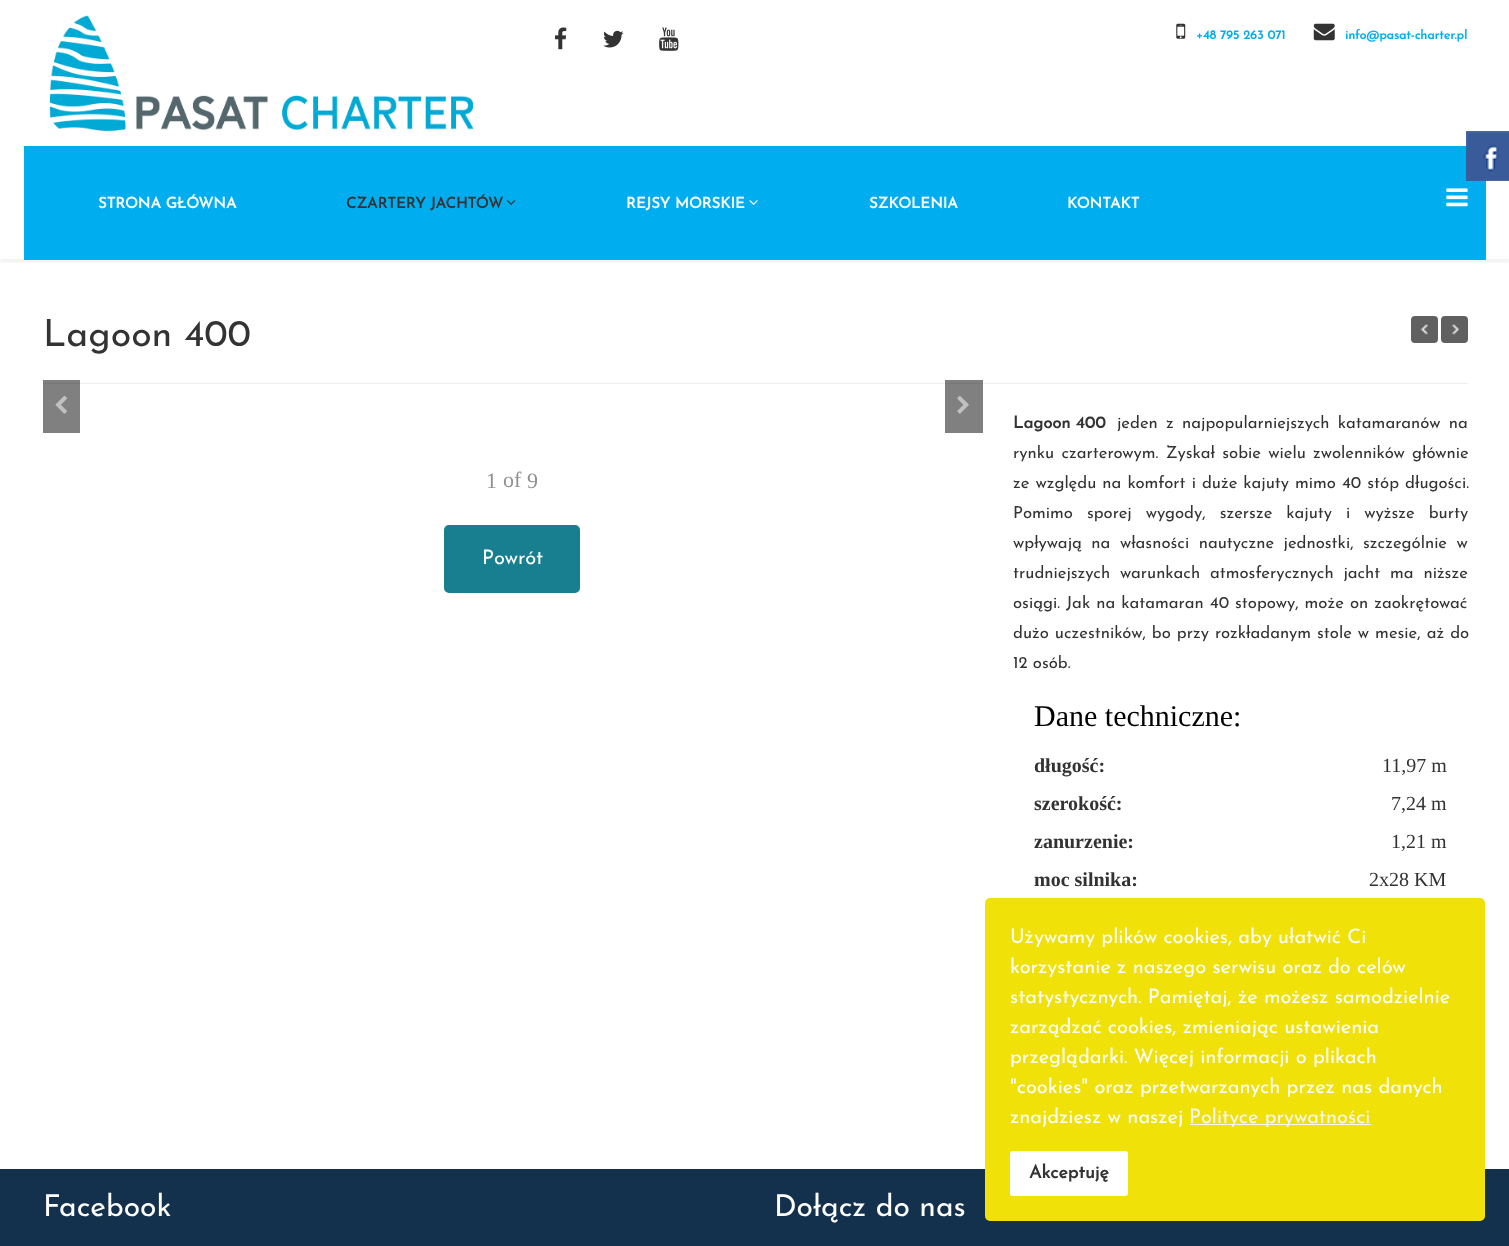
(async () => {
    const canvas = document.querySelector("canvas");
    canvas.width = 1509;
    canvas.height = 1246;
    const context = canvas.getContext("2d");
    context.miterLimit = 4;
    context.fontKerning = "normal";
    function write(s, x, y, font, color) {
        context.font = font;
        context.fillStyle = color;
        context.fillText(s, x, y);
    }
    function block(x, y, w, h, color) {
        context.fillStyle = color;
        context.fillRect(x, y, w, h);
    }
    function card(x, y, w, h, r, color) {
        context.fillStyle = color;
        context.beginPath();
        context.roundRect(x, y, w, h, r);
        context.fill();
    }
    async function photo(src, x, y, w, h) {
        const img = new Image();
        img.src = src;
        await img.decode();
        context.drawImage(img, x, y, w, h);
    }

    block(0, 0, 1509, 1246, "rgb(255, 255, 255)");
    block(945, 380, 38, 53, "rgb(128, 128, 128)");
    block(43, 380, 37, 53, "rgb(128, 128, 128)");
    await photo("media/1.png", 49, 15, 425, 116);
    await photo("media/2.png", 555, 27, 12, 23);
    await photo("media/3.png", 603, 30, 21, 18);
    await photo("media/4.png", 659, 27, 20, 24);
    await photo("media/5.png", 1176, 23, 10, 16);
    write("+48 795 263 071", 1196, 39, "bold 12.5px Josefin Sans", "rgb(0, 174, 239)");
    await photo("media/6.png", 1313, 23, 22, 18);
    write("info@pasat-charter.pl", 1345, 39, "bold 12.5px Josefin Sans", "rgb(0, 174, 239)");
    context.save();
    context.beginPath();
    context.rect(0, 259, 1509, 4);
    context.clip();
    context.fillStyle = "rgba(0, 0, 0, 0.05)";
    context.filter = "blur(2px)";
    context.beginPath();
    context.rect(0, 150, 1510, 113);
    context.fill();
    context.filter = "none";
    context.restore();
    block(24, 146, 1462, 114, "rgb(0, 174, 239)");
    write("STRONA GŁÓWNA", 98, 208, "bold 15px Josefin Sans", "rgb(255, 255, 255)");
    write("CZARTERY JACHTÓW", 346, 208, "bold 15px Josefin Sans", "rgb(51, 51, 51)");
    await photo("media/7.png", 506, 200, 10, 5);
    write("REJSY MORSKIE", 626, 208, "bold 15px Josefin Sans", "rgb(255, 255, 255)");
    await photo("media/8.png", 749, 200, 9, 5);
    write("SZKOLENIA", 869, 208, "bold 15px Josefin Sans", "rgb(255, 255, 255)");
    write("KONTAKT", 1067, 208, "bold 15px Josefin Sans", "rgb(255, 255, 255)");
    await photo("media/9.png", 1446, 188, 22, 19);
    block(80, 383, 1388, 1, "rgb(238, 238, 238)");
    block(945, 383, 38, 1, "rgb(119, 119, 119)");
    block(43, 383, 37, 1, "rgb(119, 119, 119)");
    write("Lagoon 400", 43, 346, "100 37.5px Josefin Sans", "rgb(51, 51, 51)");
    card(1411, 316, 27, 27, 4, "rgb(96, 96, 96)");
    await photo("media/10.png", 1420, 324, 8, 11);
    card(1441, 316, 27, 27, 4, "rgb(96, 96, 96)");
    await photo("media/11.png", 1451, 324, 8, 11);
    await photo("media/12.png", 55, 395, 12, 19);
    await photo("media/13.png", 957, 395, 12, 19);
    write("1", 486, 488, "22px Liberation Serif", "rgb(144, 144, 144)");
    write("of", 503, 487, "22px Liberation Serif", "rgb(144, 144, 144)");
    write("9", 527, 488, "22px Liberation Serif", "rgb(144, 144, 144)");
    card(444, 525, 136, 68, 5, "rgb(23, 127, 143)");
    write("Powrót", 482, 564, "100 20px Josefin Sans", "rgb(255, 255, 255)");
    write("Lagoon 400", 1013, 428, "bold 16.7px Josefin Sans", "rgb(51, 51, 51)");
    context.wordSpacing = "3px";
    write("jeden z najpopularniejszych katamaranów na", 1117, 428, "100 16.7px Josefin Sans", "rgb(51, 51, 51)");
    context.wordSpacing = "2px";
    write("rynku czarterowym. Zyskał sobie wielu zwolenników głównie", 1013, 458, "100 16.7px Josefin Sans", "rgb(51, 51, 51)");
    context.wordSpacing = "0.75px";
    write("ze względu na komfort i duże kajuty mimo 40 stóp długości.", 1013, 488, "100 16.7px Josefin Sans", "rgb(51, 51, 51)");
    context.wordSpacing = "8.75px";
    write("Pomimo sporej wygody, szersze kajuty i wyższe burty", 1013, 518, "100 16.7px Josefin Sans", "rgb(51, 51, 51)");
    context.wordSpacing = "4.25px";
    write("wpływają na własności nautyczne jednostki, szczególnie w", 1013, 548, "100 16.7px Josefin Sans", "rgb(51, 51, 51)");
    context.wordSpacing = "4.5px";
    write("trudniejszych warunkach atmosferycznych jacht ma niższe", 1013, 578, "100 16.7px Josefin Sans", "rgb(51, 51, 51)");
    context.wordSpacing = "0.75px";
    write("osiągi. Jak na katamaran 40 stopowy, może on zaokrętować", 1013, 608, "100 16.7px Josefin Sans", "rgb(51, 51, 51)");
    write("dużo uczestników, bo przy rozkładanym stole w mesie, aż do", 1013, 638, "100 16.7px Josefin Sans", "rgb(51, 51, 51)");
    context.wordSpacing = "0px";
    write("12 osób.", 1013, 668, "100 16.7px Josefin Sans", "rgb(51, 51, 51)");
    write("Dane techniczne:", 1034, 726, "30px Liberation Serif", "rgb(0, 0, 0)");
    write("długość:", 1034, 772, "bold 20px Liberation Serif", "rgb(51, 51, 51)");
    write("11,97 m", 1382, 772, "20px Liberation Serif", "rgb(51, 51, 51)");
    write("szerokość:", 1034, 810, "bold 20px Liberation Serif", "rgb(51, 51, 51)");
    write("7,24 m", 1391, 810, "20px Liberation Serif", "rgb(51, 51, 51)");
    write("zanurzenie:", 1034, 848, "bold 20px Liberation Serif", "rgb(51, 51, 51)");
    write("1,21 m", 1391, 848, "20px Liberation Serif", "rgb(51, 51, 51)");
    write("moc silnika:", 1034, 886, "bold 20px Liberation Serif", "rgb(51, 51, 51)");
    write("2x28 KM", 1369, 886, "20px Liberation Serif", "rgb(51, 51, 51)");
    block(0, 1169, 1509, 77, "rgb(19, 49, 76)");
    await photo("media/14.png", 1466, 131, 43, 50);
    write("Facebook", 43, 1216, "100 30px Josefin Sans", "rgb(255, 255, 255)");
    write("Dołącz do nas", 774, 1216, "100 30px Josefin Sans", "rgb(255, 255, 255)");
    card(985, 898, 500, 323, 5, "rgb(240, 225, 9)");
    write("Używamy plików cookies, aby ułatwić Ci", 1010, 943, "100 20px Josefin Sans", "rgb(255, 255, 255)");
    write("korzystanie z naszego serwisu oraz do celów", 1010, 973, "100 20px Josefin Sans", "rgb(255, 255, 255)");
    write("statystycznych. Pamiętaj, że możesz samodzielnie", 1010, 1003, "100 20px Josefin Sans", "rgb(255, 255, 255)");
    write("zarządzać cookies, zmieniając ustawienia", 1010, 1033, "100 20px Josefin Sans", "rgb(255, 255, 255)");
    write("przeglądarki. Więcej informacji o plikach", 1010, 1063, "100 20px Josefin Sans", "rgb(255, 255, 255)");
    write("\"cookies\" oraz przetwarzanych przez nas danych", 1010, 1093, "100 20px Josefin Sans", "rgb(255, 255, 255)");
    write("znajdziesz w naszej", 1010, 1123, "100 20px Josefin Sans", "rgb(255, 255, 255)");
    block(1190, 1124, 181, 1, "rgb(245, 245, 245)");
    write("Polityce prywatności", 1189, 1123, "100 20px Josefin Sans", "rgb(245, 245, 245)");
    card(1010, 1151, 118, 45, 3, "rgb(255, 255, 255)");
    write("Akceptuję", 1029, 1178, "bold 18px Josefin Sans", "rgb(51, 51, 51)");
})();
